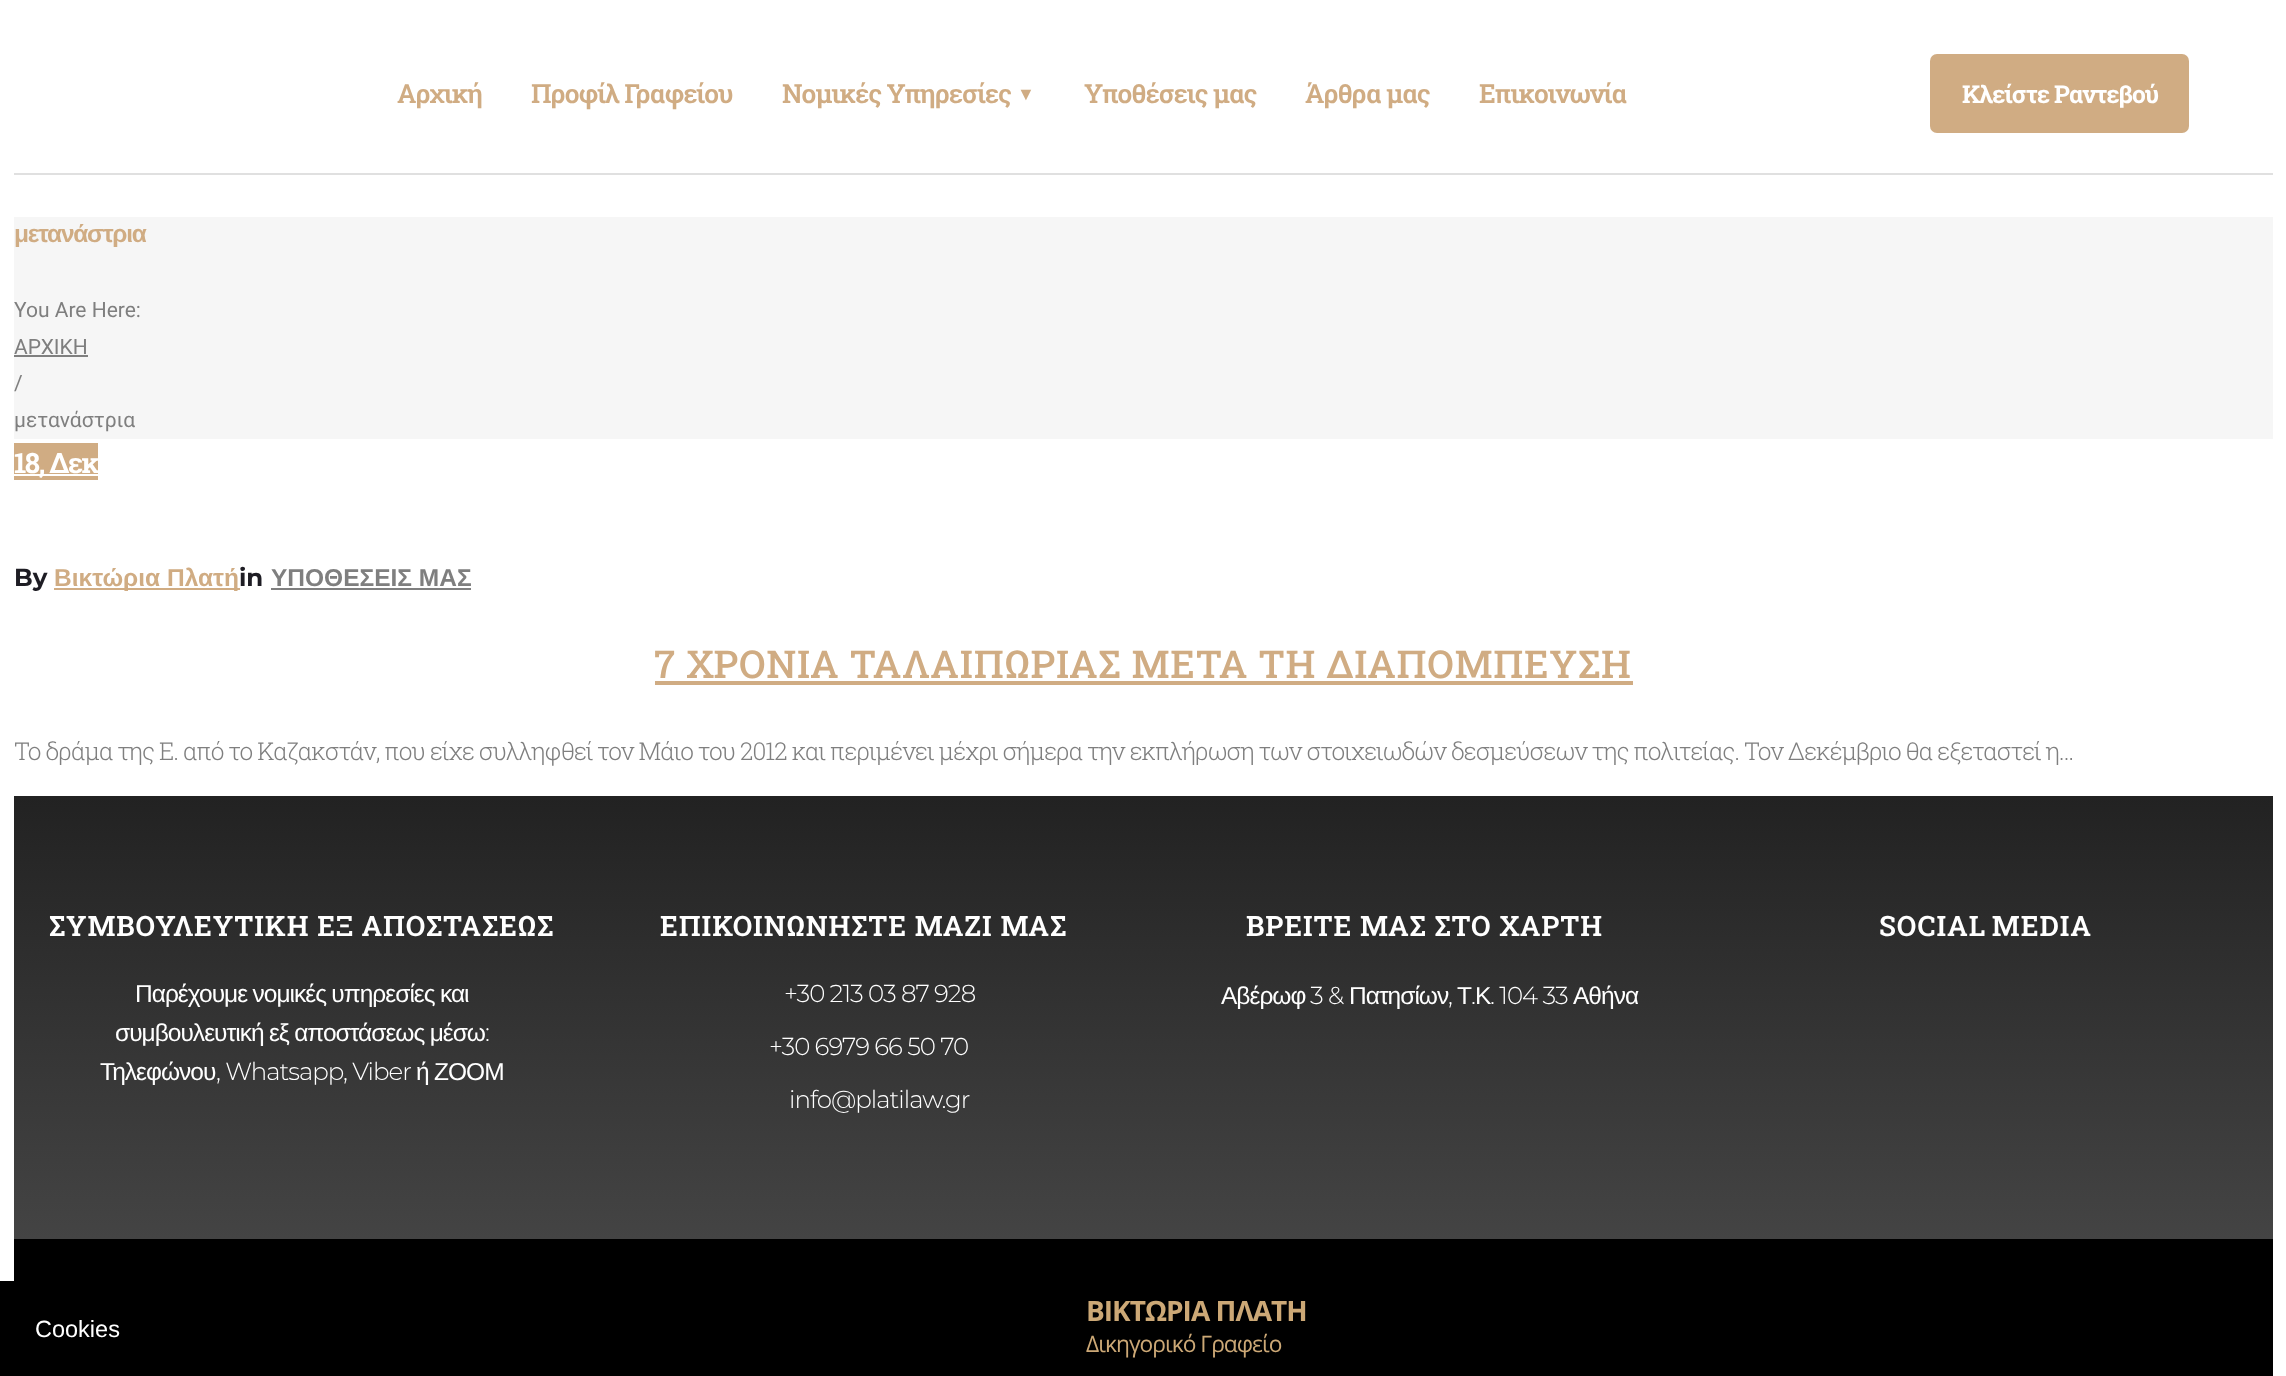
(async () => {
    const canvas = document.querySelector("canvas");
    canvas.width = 2286;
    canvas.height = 1376;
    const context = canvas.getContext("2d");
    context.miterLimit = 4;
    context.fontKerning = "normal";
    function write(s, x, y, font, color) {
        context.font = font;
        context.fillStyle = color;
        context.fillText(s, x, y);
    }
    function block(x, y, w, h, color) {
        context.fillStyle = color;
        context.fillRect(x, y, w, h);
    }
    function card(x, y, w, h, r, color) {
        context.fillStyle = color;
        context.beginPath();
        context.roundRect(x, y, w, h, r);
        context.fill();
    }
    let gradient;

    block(0, 0, 2286, 1376, "rgb(255, 255, 255)");
    block(14, 173, 2259, 2, "rgb(224, 224, 224)");
    context.letterSpacing = "-0.98px";
    write("Αρχική", 397, 103, "600 26.25px Roboto Slab", "rgb(208, 172, 131)");
    write("Προφίλ Γραφείου", 531, 103, "600 26.25px Roboto Slab", "rgb(208, 172, 131)");
    write("Νομικές Υπηρεσίες", 782, 103, "600 26.25px Roboto Slab", "rgb(208, 172, 131)");
    write("▼", 1017, 100, "bold 18px Liberation Serif", "rgb(208, 172, 131)");
    write("Υποθέσεις μας", 1084, 103, "600 26.25px Roboto Slab", "rgb(208, 172, 131)");
    write("Άρθρα μας", 1305, 103, "600 26.25px Roboto Slab", "rgb(208, 172, 131)");
    write("Επικοινωνία", 1479, 103, "600 26.25px Roboto Slab", "rgb(208, 172, 131)");
    card(1930, 54, 259, 79, 7, "rgb(208, 172, 131)");
    write("Κλείστε Ραντεβού", 1962, 103, "bold 24.5px Roboto Slab", "rgb(255, 255, 255)");
    block(14, 217, 2259, 222, "rgb(246, 246, 246)");
    context.letterSpacing = "-1.25px";
    write("μετανάστρια", 14, 242, "bold 24.5px Liberation Sans", "rgb(208, 172, 131)");
    context.letterSpacing = "0px";
    write("You Are Here:", 14, 317, "21px Roboto", "rgb(127, 127, 127)");
    write("ΑΡΧΙΚΗ", 14, 354, "21px Roboto", "rgb(127, 127, 127)");
    block(14, 355, 74, 2, "rgb(127, 127, 127)");
    write("/", 14, 390, "21px Roboto", "rgb(127, 127, 127)");
    write("μετανάστρια", 14, 427, "21px Roboto", "rgb(127, 127, 127)");
    block(14, 443, 84, 37, "rgb(208, 172, 131)");
    block(14, 474, 84, 2, "rgb(255, 255, 255)");
    context.letterSpacing = "-1.5px";
    write("18, Δεκ", 14, 473, "bold 28px Roboto Slab", "rgb(255, 255, 255)");
    context.letterSpacing = "0px";
    write("By", 14, 586, "bold 24.5px Montserrat", "rgb(30, 29, 36)");
    block(54, 588, 186, 2, "rgb(208, 172, 131)");
    write("Βικτώρια Πλατή", 54, 586, "bold 24.5px Liberation Sans", "rgb(208, 172, 131)");
    write("in", 239, 586, "bold 24.5px Montserrat", "rgb(30, 29, 36)");
    write("ΥΠΟΘΕΣΕΙΣ ΜΑΣ", 271, 586, "bold 24.5px Liberation Sans", "rgb(127, 127, 127)");
    block(271, 588, 200, 2, "rgb(127, 127, 127)");
    context.letterSpacing = "0.75px";
    write("7 ΧΡΟΝΙΑ ΤΑΛΑΙΠΩΡΙΑΣ ΜΕΤΑ ΤΗ ΔΙΑΠΟΜΠΕΥΣΗ", 654, 678, "500 38.5px Roboto Slab", "rgb(208, 172, 131)");
    block(655, 681, 978, 4, "rgb(208, 172, 131)");
    context.letterSpacing = "-0.98px";
    write("Το δράμα της Ε. από το Καζακστάν, που είχε συλληφθεί τον Μάιο του 2012 και περιμένει μέχρι σήμερα την εκπλήρωση των στοιχειωδών δεσμεύσεων της πολιτείας. Τον Δεκέμβριο θα εξεταστεί η…", 14, 760, "300 24.5px Roboto Slab", "rgb(127, 127, 127)");
    gradient = context.createLinearGradient(1144, 796, 1144, 1239);
    gradient.addColorStop(0, "rgb(34, 34, 34)");
    gradient.addColorStop(1, "rgb(68, 68, 68)");
    context.fillStyle = gradient;
    context.fillRect(14, 796, 2259, 443);
    context.letterSpacing = "0.9px";
    write("ΣΥΜΒΟΥΛΕΥΤΙΚΗ ΕΞ ΑΠΟΣΤΑΣΕΩΣ", 49, 936, "600 28px Roboto Slab", "rgb(255, 255, 255)");
    context.letterSpacing = "-0.98px";
    context.wordSpacing = "-0.5px";
    write("Παρέχουμε νομικές υπηρεσίες και", 135, 1002, "24.5px Liberation Sans", "rgb(255, 255, 255)");
    write("συμβουλευτική εξ αποστάσεως μέσω", 115, 1041, "24.5px Liberation Sans", "rgb(255, 255, 255)");
    context.wordSpacing = "0px";
    write(":", 485, 1041, "100 24.5px Montserrat", "rgb(255, 255, 255)");
    write("Τηλεφώνου", 100, 1080, "24.5px Liberation Sans", "rgb(255, 255, 255)");
    write(", Whatsapp, Viber", 216, 1080, "100 24.5px Montserrat", "rgb(255, 255, 255)");
    write("ή", 416, 1080, "24.5px Liberation Sans", "rgb(255, 255, 255)");
    write("ΖΟΟΜ", 434, 1080, "24.5px Liberation Sans", "rgb(255, 255, 255)");
    context.letterSpacing = "0.9px";
    write("ΕΠΙΚΟΙΝΩΝΗΣΤΕ ΜΑΖΙ ΜΑΣ", 660, 936, "600 28px Roboto Slab", "rgb(255, 255, 255)");
    context.letterSpacing = "-0.98px";
    write("+30 213 03 87 928", 784, 1002, "100 24.5px Montserrat", "rgb(255, 255, 255)");
    write("+30 6979 66 50 70", 769, 1055, "100 24.5px Montserrat", "rgb(255, 255, 255)");
    write("info@platilaw.gr", 789, 1108, "100 24.5px Montserrat", "rgb(255, 255, 255)");
    context.letterSpacing = "0.9px";
    write("ΒΡΕΙΤΕ ΜΑΣ ΣΤΟ ΧΑΡΤΗ", 1246, 936, "600 28px Roboto Slab", "rgb(255, 255, 255)");
    context.letterSpacing = "-0.98px";
    write("Αβέρωφ", 1221, 1004, "24.5px Liberation Sans", "rgb(255, 255, 255)");
    write("3 &", 1310, 1004, "100 24.5px Montserrat", "rgb(255, 255, 255)");
    write("Πατησίων", 1349, 1004, "24.5px Liberation Sans", "rgb(255, 255, 255)");
    write("Τ", 1457, 1004, "24.5px Liberation Sans", "rgb(255, 255, 255)");
    write("Κ", 1475, 1004, "24.5px Liberation Sans", "rgb(255, 255, 255)");
    write(". 104 33", 1490, 1004, "100 24.5px Montserrat", "rgb(255, 255, 255)");
    write("Αθήνα", 1573, 1004, "24.5px Liberation Sans", "rgb(255, 255, 255)");
    write(",", 1448, 1004, "100 24.5px Montserrat", "rgb(255, 255, 255)");
    write(".", 1471, 1004, "100 24.5px Montserrat", "rgb(255, 255, 255)");
    context.letterSpacing = "0.9px";
    context.wordSpacing = "-2px";
    write("SOCIAL MEDIA", 1879, 936, "600 28px Roboto Slab", "rgb(255, 255, 255)");
    block(14, 1239, 2259, 137, "rgb(0, 0, 0)");
    context.letterSpacing = "-0.98px";
    context.wordSpacing = "0px";
    write("ΒΙΚΤΩΡΙΑ ΠΛΑΤΗ", 1086, 1321, "bold 28px Open Sans", "rgb(204, 168, 118)");
    write("Δικηγορικό Γραφείο", 1086, 1352, "22.75px Open Sans", "rgb(204, 168, 118)");
    block(0, 1281, 14, 95, "rgb(0, 0, 0)");
    context.letterSpacing = "0px";
    write("Cookies", 35, 1337, "23.5px Liberation Sans", "rgb(255, 255, 255)");
})();
